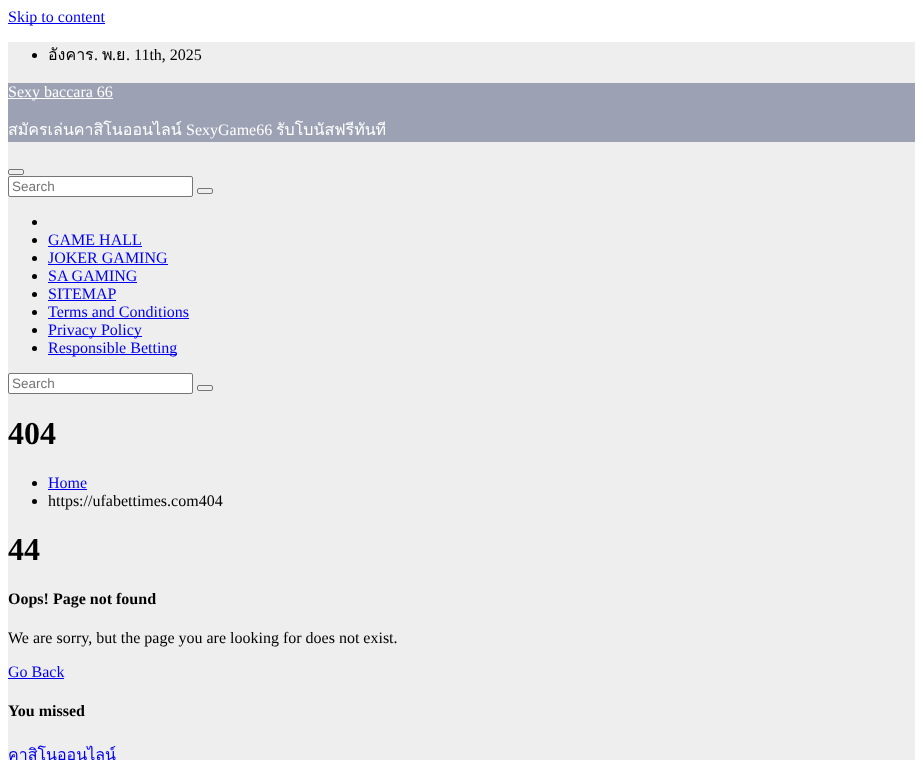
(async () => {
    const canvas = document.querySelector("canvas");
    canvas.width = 923;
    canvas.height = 760;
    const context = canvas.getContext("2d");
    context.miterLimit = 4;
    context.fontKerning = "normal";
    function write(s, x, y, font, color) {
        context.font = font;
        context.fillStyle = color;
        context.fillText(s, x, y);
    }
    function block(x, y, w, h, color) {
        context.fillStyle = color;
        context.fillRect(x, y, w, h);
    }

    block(0, 0, 923, 760, "rgb(255, 255, 255)");
    block(8, 23, 97, 1, "rgb(0, 0, 238)");
    write("Skip to content", 8, 22, "16px Liberation Serif", "rgb(0, 0, 238)");
    block(8, 42, 907, 718, "rgb(238, 238, 238)");
    context.fillStyle = "rgb(0, 0, 0)";
    context.beginPath();
    context.arc(34.5, 55.5, 2.5, 0, Math.PI * 2);
    context.fill();
    write("อังคาร", 48, 60, "16px Loma", "rgb(0, 0, 0)");
    write("พ", 102, 60, "16px Loma", "rgb(0, 0, 0)");
    write("ย", 116, 60, "16px Loma", "rgb(0, 0, 0)");
    write(". 11th, 2025", 126, 60, "16px Liberation Serif", "rgb(0, 0, 0)");
    write(".", 94, 60, "16px Liberation Serif", "rgb(0, 0, 0)");
    write(".", 112, 60, "16px Liberation Serif", "rgb(0, 0, 0)");
    block(8, 83, 907, 59, "rgb(156, 162, 179)");
    block(8, 98, 105, 1, "rgb(255, 255, 255)");
    write("Sexy baccara 66", 8, 97, "16px Liberation Serif", "rgb(255, 255, 255)");
    write("สมัครเล่นคาสิโนออนไลน์", 8, 135, "16px Loma", "rgb(255, 255, 255)");
    write("SexyGame66", 186, 135, "16px Liberation Serif", "rgb(255, 255, 255)");
    write("รับโบนัสฟรีทันที", 276, 135, "16px Loma", "rgb(255, 255, 255)");
    context.beginPath();
    context.roundRect(8.5, 169.5, 15, 5, 1.5);
    context.strokeStyle = "rgb(118, 118, 118)";
    context.stroke();
    context.beginPath();
    context.roundRect(8.5, 176.5, 184, 20, 1.5);
    context.fill();
    context.stroke();
    write("Search", 12, 191, "13.5px Liberation Sans", "rgb(117, 117, 117)");
    context.beginPath();
    context.roundRect(197.5, 188.5, 15, 5, 1.5);
    context.stroke();
    context.fillStyle = "rgb(0, 0, 0)";
    context.beginPath();
    context.arc(34.5, 222.5, 2.5, 0, Math.PI * 2);
    context.fill();
    context.beginPath();
    context.arc(34.5, 240.5, 2.5, 0, Math.PI * 2);
    context.fill();
    write("GAME HALL", 48, 245, "16px Liberation Serif", "rgb(0, 0, 238)");
    block(48, 246, 94, 1, "rgb(0, 0, 238)");
    context.fillStyle = "rgb(0, 0, 0)";
    context.beginPath();
    context.arc(34.5, 258.5, 2.5, 0, Math.PI * 2);
    context.fill();
    write("JOKER GAMING", 48, 263, "16px Liberation Serif", "rgb(0, 0, 238)");
    block(48, 264, 120, 1, "rgb(0, 0, 238)");
    context.fillStyle = "rgb(0, 0, 0)";
    context.beginPath();
    context.arc(34.5, 276.5, 2.5, 0, Math.PI * 2);
    context.fill();
    write("SA GAMING", 48, 281, "16px Liberation Serif", "rgb(0, 0, 238)");
    block(48, 282, 89, 1, "rgb(0, 0, 238)");
    context.fillStyle = "rgb(0, 0, 0)";
    context.beginPath();
    context.arc(34.5, 294.5, 2.5, 0, Math.PI * 2);
    context.fill();
    write("SITEMAP", 48, 299, "16px Liberation Serif", "rgb(0, 0, 238)");
    block(48, 300, 68, 1, "rgb(0, 0, 238)");
    context.fillStyle = "rgb(0, 0, 0)";
    context.beginPath();
    context.arc(34.5, 312.5, 2.5, 0, Math.PI * 2);
    context.fill();
    write("Terms and Conditions", 48, 317, "16px Liberation Serif", "rgb(0, 0, 238)");
    block(48, 318, 141, 1, "rgb(0, 0, 238)");
    context.fillStyle = "rgb(0, 0, 0)";
    context.beginPath();
    context.arc(34.5, 330.5, 2.5, 0, Math.PI * 2);
    context.fill();
    block(48, 336, 94, 1, "rgb(0, 0, 238)");
    write("Privacy Policy", 48, 335, "16px Liberation Serif", "rgb(0, 0, 238)");
    context.fillStyle = "rgb(0, 0, 0)";
    context.beginPath();
    context.arc(34.5, 348.5, 2.5, 0, Math.PI * 2);
    context.fill();
    block(48, 354, 129, 1, "rgb(0, 0, 238)");
    write("Responsible Betting", 48, 353, "16px Liberation Serif", "rgb(0, 0, 238)");
    context.fillStyle = "rgb(255, 255, 255)";
    context.beginPath();
    context.roundRect(8.5, 373.5, 184, 20, 1.5);
    context.fill();
    context.stroke();
    write("Search", 12, 388, "13.5px Liberation Sans", "rgb(117, 117, 117)");
    context.beginPath();
    context.roundRect(197.5, 385.5, 15, 5, 1.5);
    context.stroke();
    write("404", 8, 444, "bold 32px Liberation Serif", "rgb(0, 0, 0)");
    context.beginPath();
    context.arc(34.5, 483.5, 2.5, 0, Math.PI * 2);
    context.fill();
    write("Home", 48, 488, "16px Liberation Serif", "rgb(0, 0, 238)");
    block(48, 489, 39, 1, "rgb(0, 0, 238)");
    context.fillStyle = "rgb(0, 0, 0)";
    context.beginPath();
    context.arc(34.5, 501.5, 2.5, 0, Math.PI * 2);
    context.fill();
    write("https://ufabettimes.com404", 48, 506, "16px Liberation Serif", "rgb(0, 0, 0)");
    write("44", 8, 560, "bold 32px Liberation Serif", "rgb(0, 0, 0)");
    write("Oops! Page not found", 8, 604, "bold 16px Liberation Serif", "rgb(0, 0, 0)");
    write("We are sorry, but the page you are looking for does not exist.", 8, 643, "16px Liberation Serif", "rgb(0, 0, 0)");
    write("Go Back", 8, 677, "16px Liberation Serif", "rgb(0, 0, 238)");
    block(8, 678, 56, 1, "rgb(0, 0, 238)");
    write("You missed", 8, 716, "bold 16px Liberation Serif", "rgb(0, 0, 0)");
    write("คาสิโนออนไลน์", 8, 760, "16px Loma", "rgb(0, 0, 238)");
})();
